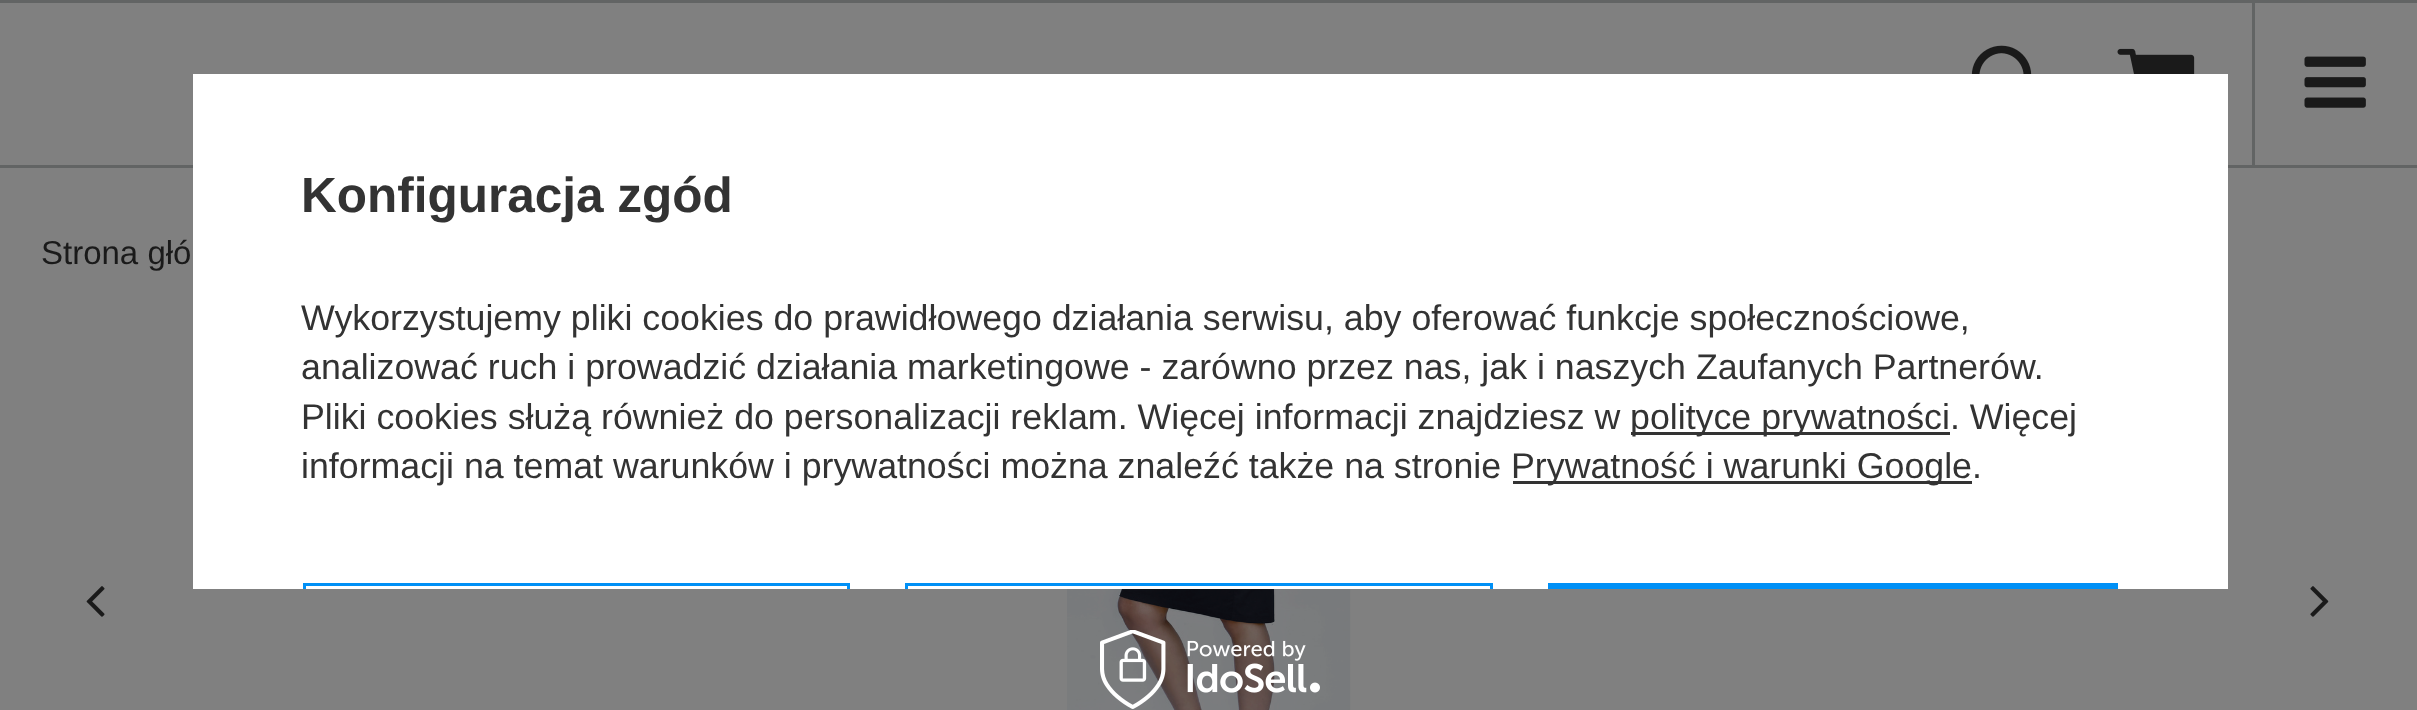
(async () => {
    const canvas = document.querySelector("canvas");
    canvas.width = 2417;
    canvas.height = 710;
    const context = canvas.getContext("2d");
    context.miterLimit = 4;
    context.fontKerning = "normal";
    function write(s, x, y, font, color) {
        context.font = font;
        context.fillStyle = color;
        context.fillText(s, x, y);
    }
    function block(x, y, w, h, color) {
        context.fillStyle = color;
        context.fillRect(x, y, w, h);
    }
    async function photo(src, x, y, w, h) {
        const img = new Image();
        img.src = src;
        await img.decode();
        context.drawImage(img, x, y, w, h);
    }

    block(0, 0, 2417, 710, "rgb(128, 128, 128)");
    block(0, 165, 2417, 3, "rgb(98, 100, 100)");
    block(2252, 0, 3, 165, "rgb(98, 100, 100)");
    block(0, 0, 2417, 3, "rgb(98, 100, 100)");
    await photo("media/1.png", 1971, 45, 61, 29);
    await photo("media/2.png", 2117, 48, 78, 26);
    await photo("media/3.png", 2304, 56, 62, 52);
    write("Strona głó", 41, 264, "33px Liberation Sans", "rgb(26, 26, 26)");
    await photo("media/4.png", 86, 586, 19, 31);
    await photo("media/5.png", 1067, 589, 284, 121);
    await photo("media/6.png", 2310, 586, 19, 31);
    block(193, 74, 2035, 515, "rgb(255, 255, 255)");
    write("Konfiguracja zgód", 301, 212, "bold 49.5px Liberation Sans", "rgb(51, 51, 51)");
    write("Wykorzystujemy pliki cookies do prawidłowego działania serwisu, aby oferować funkcje społecznościowe,", 301, 330, "35.75px Liberation Sans", "rgb(51, 51, 51)");
    write("analizować ruch i prowadzić działania marketingowe - zarówno przez nas, jak i naszych Zaufanych Partnerów.", 301, 379, "35.75px Liberation Sans", "rgb(51, 51, 51)");
    write("Pliki cookies służą również do personalizacji reklam. Więcej informacji znajdziesz w", 301, 429, "35.75px Liberation Sans", "rgb(51, 51, 51)");
    block(1631, 432, 319, 3, "rgb(51, 51, 51)");
    write("polityce prywatności. Więcej", 1630, 429, "35.75px Liberation Sans", "rgb(51, 51, 51)");
    write("informacji na temat warunków i prywatności można znaleźć także na stronie", 301, 478, "35.75px Liberation Sans", "rgb(51, 51, 51)");
    block(1513, 481, 459, 3, "rgb(51, 51, 51)");
    write("Prywatność i warunki Google.", 1511, 478, "35.75px Liberation Sans", "rgb(51, 51, 51)");
    context.save();
    context.beginPath();
    context.rect(193, 74, 2035, 515);
    context.clip();
    context.strokeStyle = "rgb(0, 144, 246)";
    context.lineWidth = 3;
    context.strokeRect(304.5, 584.5, 544, 121);
    context.strokeRect(906.5, 584.5, 585, 121);
    context.restore();
    block(1548, 583, 570, 6, "rgb(0, 144, 246)");
    await photo("media/7.png", 1100, 630, 220, 79);
})();
